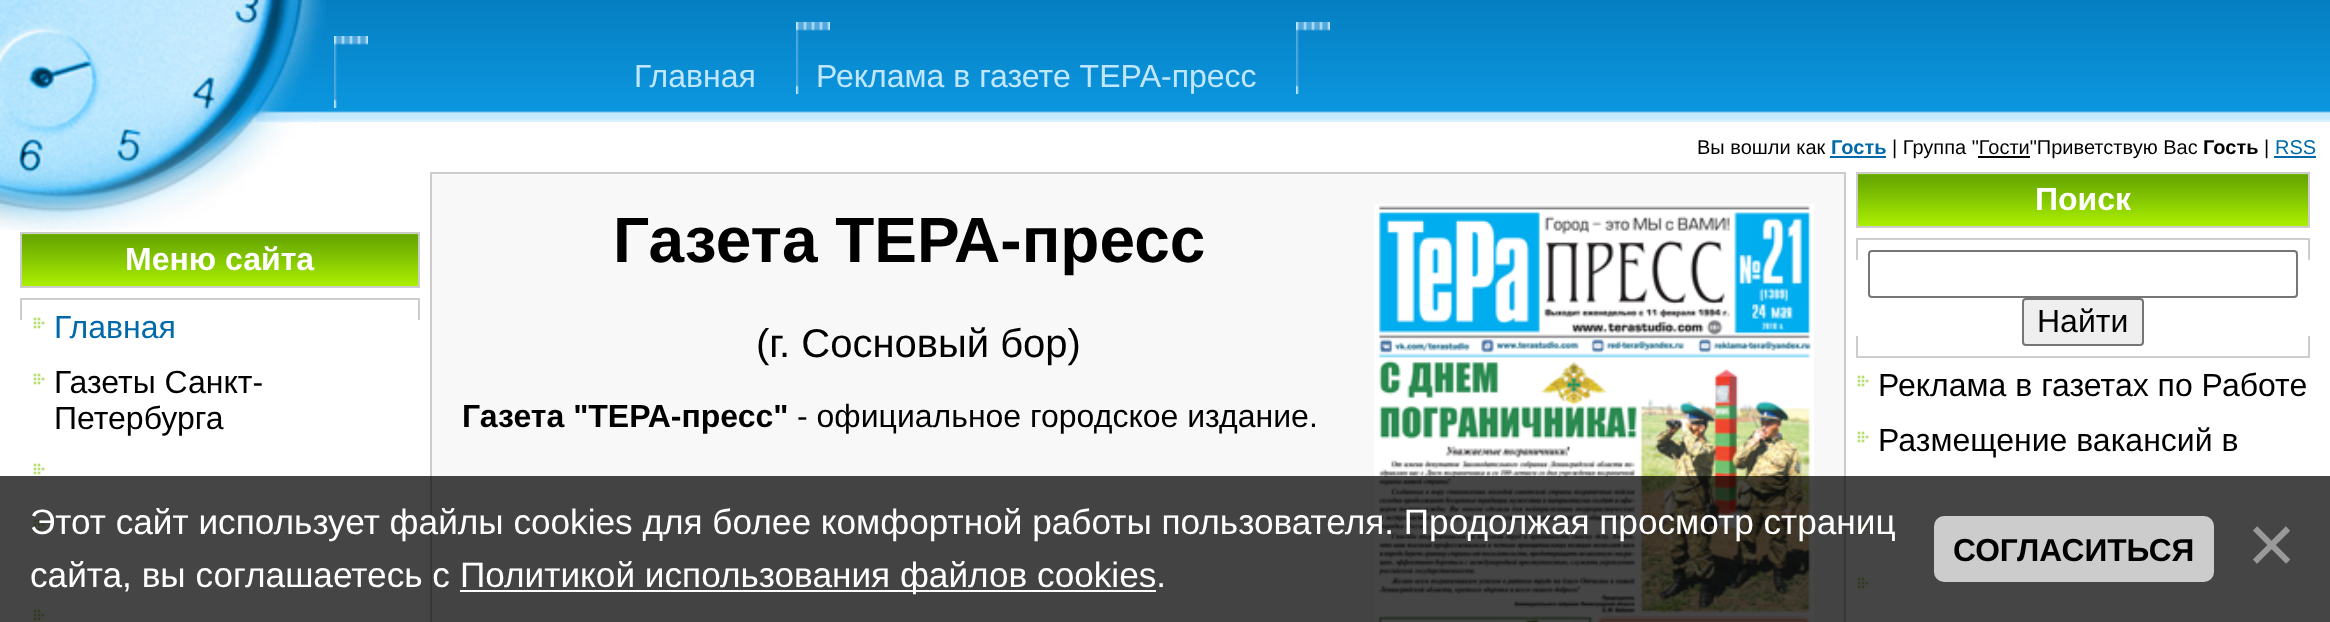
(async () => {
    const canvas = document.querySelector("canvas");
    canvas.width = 2330;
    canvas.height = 622;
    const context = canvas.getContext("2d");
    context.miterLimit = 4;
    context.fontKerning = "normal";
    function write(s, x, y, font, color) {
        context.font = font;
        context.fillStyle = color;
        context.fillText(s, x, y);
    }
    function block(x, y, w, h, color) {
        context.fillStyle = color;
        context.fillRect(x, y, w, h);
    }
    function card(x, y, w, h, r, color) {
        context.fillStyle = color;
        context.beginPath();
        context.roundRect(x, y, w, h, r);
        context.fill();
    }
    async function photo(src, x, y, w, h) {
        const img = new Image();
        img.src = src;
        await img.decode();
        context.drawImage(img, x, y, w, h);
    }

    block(0, 0, 2330, 622, "rgb(255, 255, 255)");
    await photo("media/1.png", 0, 122, 318, 108);
    await photo("media/2.png", 326, 0, 2004, 122);
    await photo("media/3.png", 0, 0, 326, 122);
    await photo("media/4.png", 334, 36, 34, 72);
    write("Главная", 634, 87, "32px Liberation Sans", "rgb(193, 231, 255)");
    await photo("media/5.png", 796, 22, 34, 72);
    write("Реклама в газете ТЕРА-пресс", 816, 87, "32px Liberation Sans", "rgb(193, 231, 255)");
    await photo("media/5.png", 1296, 22, 34, 72);
    write("Вы вошли как", 1697, 154, "20px Liberation Sans", "rgb(0, 0, 0)");
    write("Гость", 1831, 154, "bold 20px Liberation Sans", "rgb(0, 105, 169)");
    block(1830, 156, 56, 2, "rgb(0, 105, 169)");
    write("| Группа \"Гости\"Приветствую Вас", 1892, 154, "20px Liberation Sans", "rgb(0, 0, 0)");
    write("Гость", 2203, 154, "bold 20px Liberation Sans", "rgb(0, 0, 0)");
    write("|", 2264, 154, "20px Liberation Sans", "rgb(0, 0, 0)");
    write("RSS", 2275, 154, "20px Liberation Sans", "rgb(0, 105, 169)");
    block(2274, 156, 42, 2, "rgb(0, 105, 169)");
    block(1978, 156, 52, 2, "rgb(0, 0, 0)");
    await photo("media/6.png", 22, 234, 396, 52);
    context.strokeStyle = "rgb(204, 204, 204)";
    context.lineWidth = 2;
    context.strokeRect(21, 233, 398, 54);
    write("Меню сайта", 125, 270, "bold 32px Liberation Sans", "rgb(255, 255, 255)");
    block(20, 298, 2, 22, "rgb(205, 205, 205)");
    block(418, 298, 2, 22, "rgb(205, 205, 205)");
    block(22, 298, 396, 2, "rgb(205, 205, 205)");
    await photo("media/7.png", 33, 317, 12, 12);
    write("Главная", 54, 338, "32px Liberation Sans", "rgb(0, 105, 169)");
    await photo("media/7.png", 33, 373, 12, 12);
    write("Газеты Санкт-", 54, 393, "32px Liberation Sans", "rgb(0, 0, 0)");
    write("Петербурга", 54, 429, "32px Liberation Sans", "rgb(0, 0, 0)");
    await photo("media/7.png", 33, 463, 12, 12);
    await photo("media/7.png", 33, 519, 12, 12);
    await photo("media/7.png", 33, 609, 12, 12);
    context.strokeRect(431, 173, 1414, 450);
    block(432, 174, 1412, 448, "rgb(248, 248, 248)");
    write("Газета ТЕРА-пресс", 613, 262, "bold 64px Liberation Sans", "rgb(0, 0, 0)");
    await photo("media/8.png", 1374, 204, 440, 418);
    write("(г. Сосновый бор)", 756, 357, "40px Liberation Sans", "rgb(0, 0, 0)");
    write("Газета \"ТЕРА-пресс\"", 462, 427, "bold 32px Liberation Sans", "rgb(0, 0, 0)");
    write("- официальное городское издание.", 797, 427, "32px Liberation Sans", "rgb(0, 0, 0)");
    await photo("media/9.png", 1858, 174, 450, 52);
    context.strokeRect(1857, 173, 452, 54);
    write("Поиск", 2035, 210, "bold 32px Liberation Sans", "rgb(255, 255, 255)");
    block(1856, 336, 2, 22, "rgb(205, 205, 205)");
    block(1856, 238, 2, 22, "rgb(205, 205, 205)");
    block(1858, 238, 450, 2, "rgb(205, 205, 205)");
    block(1858, 356, 450, 2, "rgb(205, 205, 205)");
    context.beginPath();
    context.roundRect(1869, 251, 428, 46, 3);
    context.strokeStyle = "rgb(118, 118, 118)";
    context.stroke();
    context.fillStyle = "rgb(239, 239, 239)";
    context.beginPath();
    context.roundRect(2023, 299, 120, 46, 3);
    context.fill();
    context.stroke();
    write("Найти", 2037, 332, "32px Liberation Sans", "rgb(0, 0, 0)");
    block(2308, 336, 2, 22, "rgb(205, 205, 205)");
    block(2308, 238, 2, 22, "rgb(205, 205, 205)");
    await photo("media/7.png", 1857, 375, 12, 12);
    write("Реклама в газетах по Работе", 1878, 396, "32px Liberation Sans", "rgb(0, 0, 0)");
    await photo("media/7.png", 1857, 431, 12, 12);
    write("Размещение вакансий в", 1878, 451, "32px Liberation Sans", "rgb(0, 0, 0)");
    await photo("media/7.png", 1857, 521, 12, 12);
    await photo("media/7.png", 1857, 577, 12, 12);
    block(0, 476, 2330, 146, "rgba(0, 0, 0, 0.73)");
    write("Этот сайт использует файлы cookies для более комфортной работы пользователя. Продолжая просмотр страниц", 30, 534, "35.2px Liberation Sans", "rgb(255, 255, 255)");
    write("сайта, вы соглашаетесь с", 30, 587, "35.2px Liberation Sans", "rgb(255, 255, 255)");
    block(460, 590, 696, 2, "rgb(255, 255, 255)");
    write("Политикой использования файлов cookies.", 460, 587, "35.2px Liberation Sans", "rgb(255, 255, 255)");
    card(1934, 516, 280, 66, 10, "rgba(255, 255, 255, 0.73)");
    write("СОГЛАСИТЬСЯ", 1953, 561, "bold 31.75px Liberation Sans", "rgb(0, 0, 0)");
    write("×", 2247, 573, "84px Liberation Sans", "rgb(153, 153, 153)");
})();
